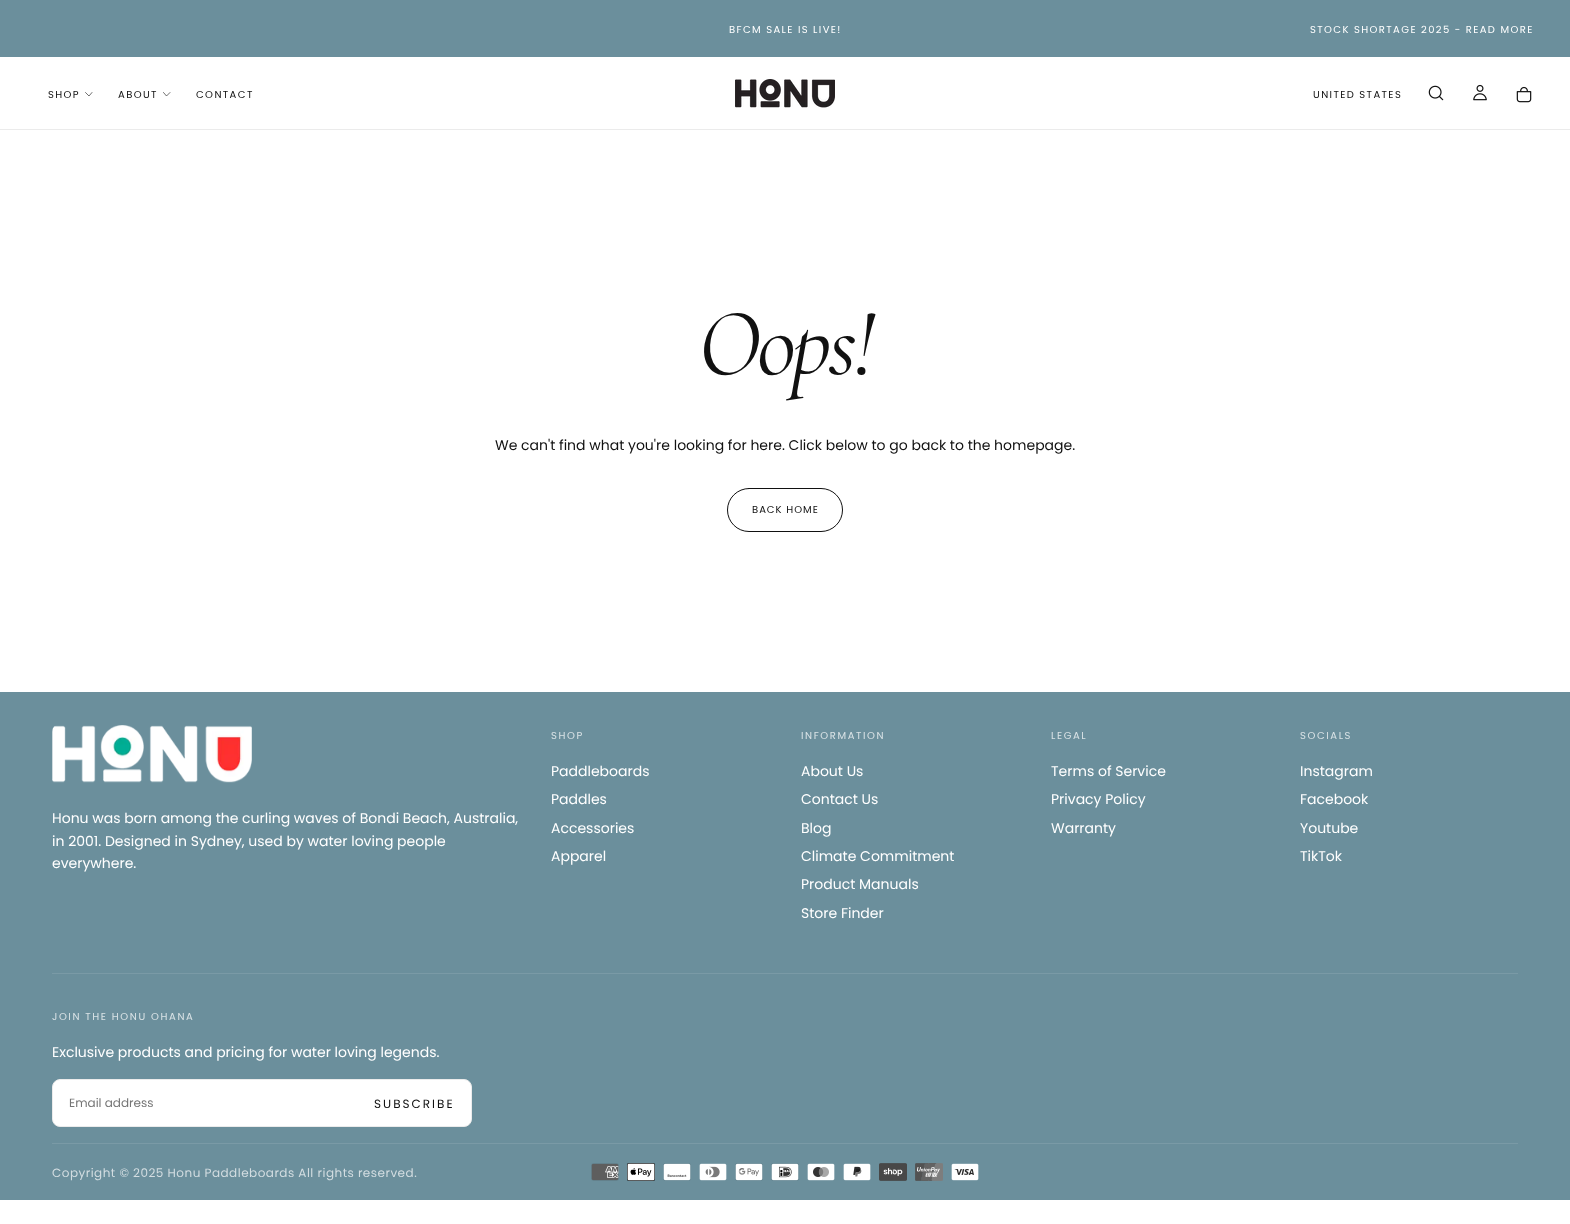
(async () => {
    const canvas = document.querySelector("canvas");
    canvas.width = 1570;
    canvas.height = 1224;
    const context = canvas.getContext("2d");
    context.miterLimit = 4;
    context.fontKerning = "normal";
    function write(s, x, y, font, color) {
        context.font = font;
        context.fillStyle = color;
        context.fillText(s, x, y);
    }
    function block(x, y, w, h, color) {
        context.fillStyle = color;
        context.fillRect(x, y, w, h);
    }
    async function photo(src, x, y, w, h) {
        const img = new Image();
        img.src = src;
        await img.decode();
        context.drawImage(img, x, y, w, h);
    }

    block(0, 0, 1570, 1224, "rgb(255, 255, 255)");
    block(0, 0, 1570, 57, "rgb(107, 143, 156)");
    context.letterSpacing = "1.4px";
    write("BFCM SALE IS LIVE!", 729, 33, "10px Poppins", "rgb(255, 255, 255)");
    write("STOCK SHORTAGE 2025 - READ MORE", 1310, 33, "10px Poppins", "rgb(255, 255, 255)");
    block(0, 129, 1570, 1, "rgb(235, 235, 235)");
    write("SHOP", 48, 98, "10px Poppins", "rgb(17, 17, 17)");
    context.beginPath();
    context.moveTo(92, 92.5);
    context.lineTo(89, 96);
    context.lineTo(85.5, 92.5);
    context.strokeStyle = "rgb(17, 17, 17)";
    context.lineWidth = 0.6;
    context.lineCap = "round";
    context.lineJoin = "round";
    context.stroke();
    write("ABOUT", 118, 98, "10px Poppins", "rgb(17, 17, 17)");
    context.beginPath();
    context.moveTo(170, 92.5);
    context.lineTo(166.5, 96);
    context.lineTo(163.5, 92.5);
    context.stroke();
    write("CONTACT", 196, 98, "10px Poppins", "rgb(17, 17, 17)");
    await photo("media/1.png", 735, 79, 100, 29);
    write("UNITED STATES", 1313, 98, "10px Poppins", "rgb(17, 17, 17)");
    await photo("media/2.png", 1428, 85, 16, 16);
    await photo("media/3.png", 1473, 84, 14, 17);
    await photo("media/4.png", 1516, 86, 16, 17);
    context.letterSpacing = "-3.25px";
    write("Oops!", 698, 374, "italic 96px Cormorant", "rgb(17, 17, 17)");
    context.letterSpacing = "0px";
    write("We can't find what you're looking for here. Click below to go back to the homepage.", 495, 450, "14px Poppins", "rgb(17, 17, 17)");
    context.beginPath();
    context.roundRect(727.5, 488.5, 115, 43, 21.5);
    context.lineWidth = 1;
    context.lineJoin = "miter";
    context.stroke();
    context.letterSpacing = "1px";
    write("BACK HOME", 752, 513, "10px Poppins", "rgb(17, 17, 17)");
    block(0, 692, 1570, 508, "rgb(107, 143, 156)");
    await photo("media/5.png", 52, 725, 200, 58);
    context.letterSpacing = "0px";
    write("Honu was born among the curling waves of Bondi Beach, Australia,", 52, 823, "14px Poppins", "rgb(255, 255, 255)");
    write("in 2001. Designed in Sydney, used by water loving people", 52, 846, "14px Poppins", "rgb(255, 255, 255)");
    write("everywhere.", 52, 868, "14px Poppins", "rgb(255, 255, 255)");
    context.letterSpacing = "1.6px";
    write("SHOP", 551, 739, "10px Poppins", "rgb(218, 227, 230)");
    context.letterSpacing = "0px";
    write("Paddleboards", 551, 776, "14px Poppins", "rgb(255, 255, 255)");
    write("Paddles", 551, 804, "14px Poppins", "rgb(255, 255, 255)");
    write("Accessories", 551, 833, "14px Poppins", "rgb(255, 255, 255)");
    write("Apparel", 551, 861, "14px Poppins", "rgb(255, 255, 255)");
    context.letterSpacing = "1.6px";
    write("INFORMATION", 801, 739, "10px Poppins", "rgb(218, 227, 230)");
    context.letterSpacing = "0px";
    write("About Us", 801, 776, "14px Poppins", "rgb(255, 255, 255)");
    write("Contact Us", 801, 804, "14px Poppins", "rgb(255, 255, 255)");
    write("Blog", 801, 833, "14px Poppins", "rgb(255, 255, 255)");
    write("Climate Commitment", 801, 861, "14px Poppins", "rgb(255, 255, 255)");
    write("Product Manuals", 801, 889, "14px Poppins", "rgb(255, 255, 255)");
    write("Store Finder", 801, 918, "14px Poppins", "rgb(255, 255, 255)");
    context.letterSpacing = "1.6px";
    write("LEGAL", 1051, 739, "10px Poppins", "rgb(218, 227, 230)");
    context.letterSpacing = "0px";
    write("Terms of Service", 1051, 776, "14px Poppins", "rgb(255, 255, 255)");
    write("Privacy Policy", 1051, 804, "14px Poppins", "rgb(255, 255, 255)");
    write("Warranty", 1051, 833, "14px Poppins", "rgb(255, 255, 255)");
    context.letterSpacing = "1.6px";
    write("SOCIALS", 1300, 739, "10px Poppins", "rgb(218, 227, 230)");
    context.letterSpacing = "0px";
    write("Instagram", 1300, 776, "14px Poppins", "rgb(255, 255, 255)");
    write("Facebook", 1300, 804, "14px Poppins", "rgb(255, 255, 255)");
    write("Youtube", 1300, 833, "14px Poppins", "rgb(255, 255, 255)");
    write("TikTok", 1300, 861, "14px Poppins", "rgb(255, 255, 255)");
    block(52, 973, 1466, 1, "rgb(122, 154, 166)");
    context.letterSpacing = "1.6px";
    write("JOIN THE HONU OHANA", 52, 1020, "10px Poppins", "rgb(218, 227, 230)");
    context.letterSpacing = "0px";
    write("Exclusive products and pricing for water loving legends.", 52, 1057, "14px Poppins", "rgb(255, 255, 255)");
    context.beginPath();
    context.roundRect(52.5, 1079.5, 419, 47, 7.5);
    context.fill();
    context.strokeStyle = "rgb(235, 235, 235)";
    context.stroke();
    write("Email address", 69, 1107, "12px Poppins", "rgb(117, 117, 117)");
    context.letterSpacing = "2px";
    write("SUBSCRIBE", 374, 1108, "12px Poppins", "rgb(17, 17, 17)");
    block(52, 1143, 1466, 1, "rgb(122, 154, 166)");
    context.letterSpacing = "0.48px";
    write("Copyright © 2025 Honu Paddleboards All rights reserved.", 52, 1177, "12px Poppins", "rgb(211, 221, 225)");
    await photo("media/6.png", 591, 1163, 28, 18);
    await photo("media/7.png", 627, 1163, 28, 18);
    await photo("media/8.png", 663, 1163, 28, 18);
    await photo("media/9.png", 699, 1163, 28, 18);
    await photo("media/10.png", 735, 1163, 28, 18);
    await photo("media/11.png", 771, 1163, 28, 18);
    await photo("media/12.png", 807, 1163, 28, 18);
    await photo("media/13.png", 843, 1163, 28, 18);
    await photo("media/14.png", 879, 1163, 28, 18);
    await photo("media/15.png", 915, 1163, 28, 18);
    await photo("media/16.png", 951, 1163, 28, 18);
})();
